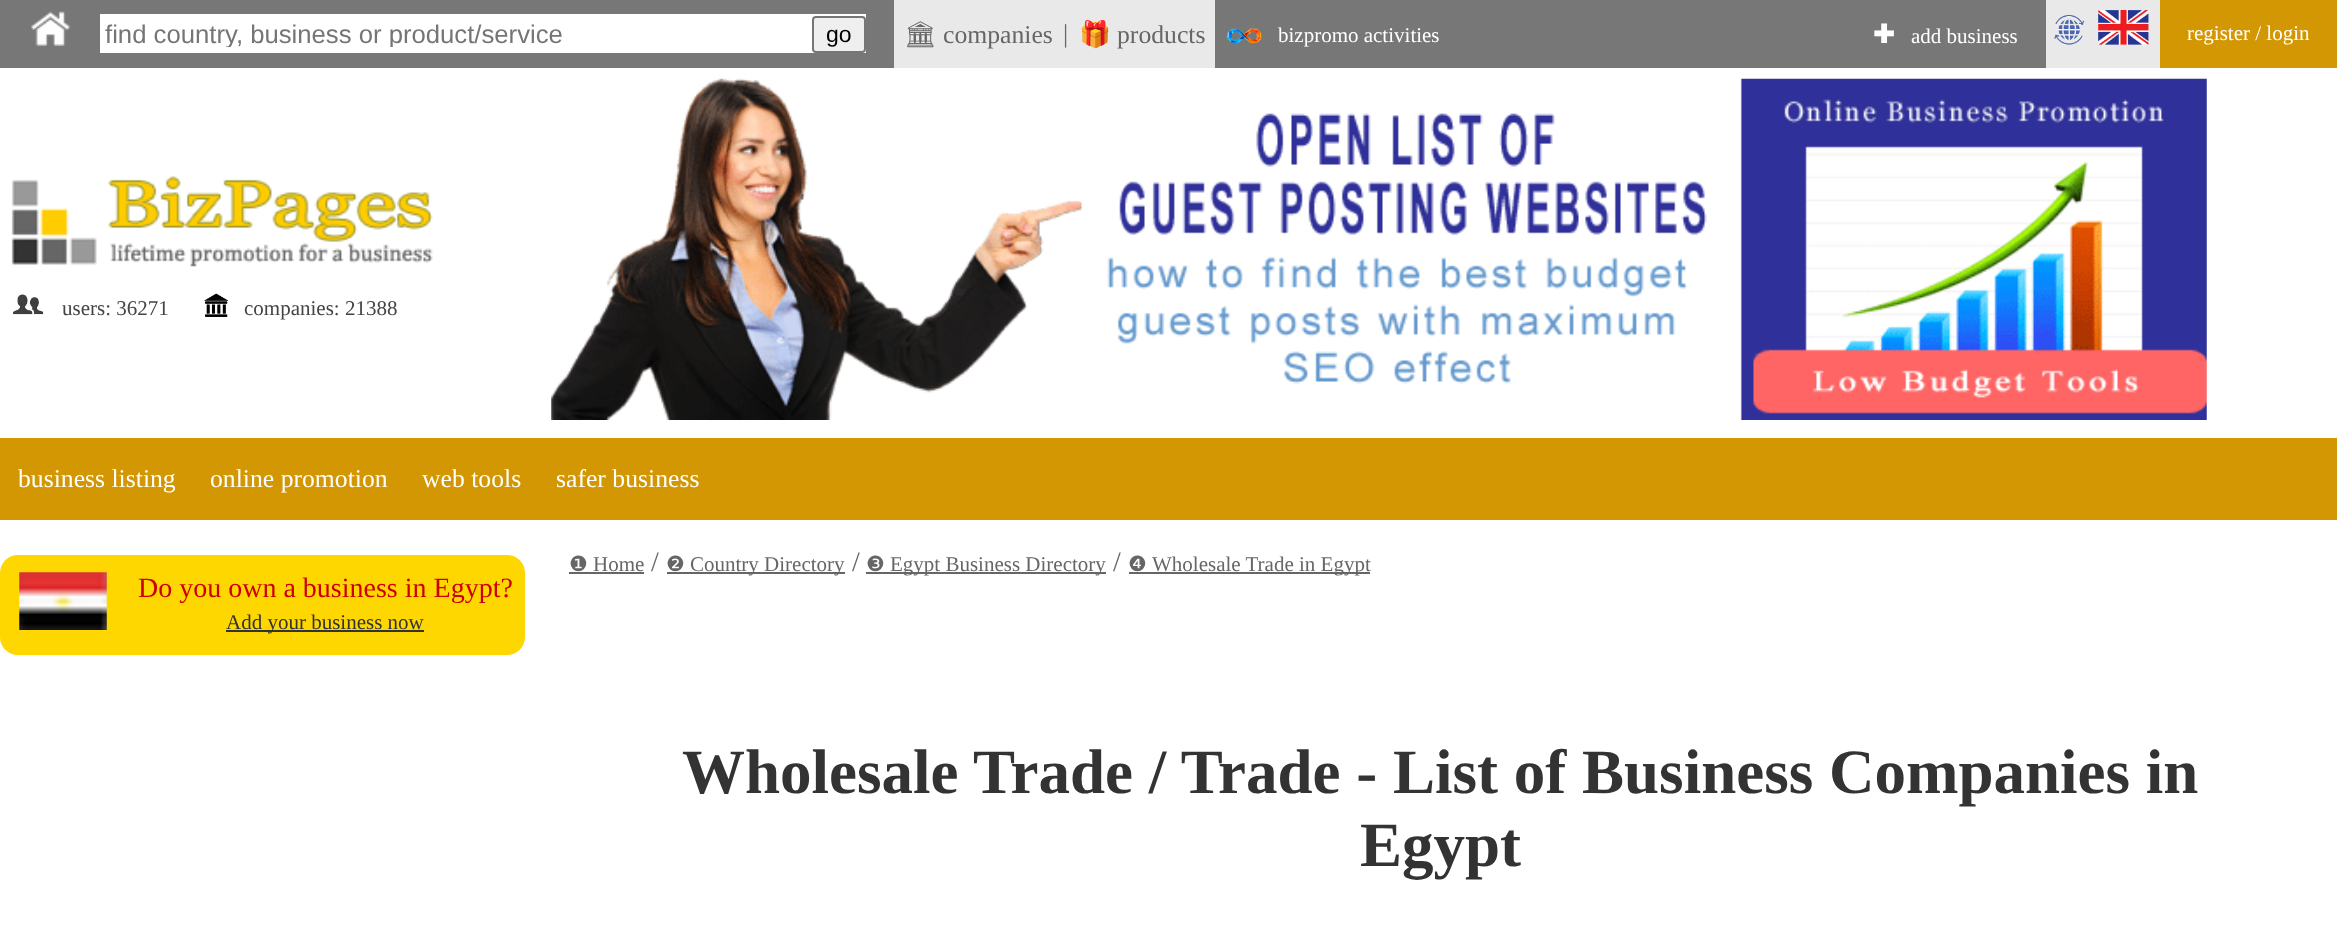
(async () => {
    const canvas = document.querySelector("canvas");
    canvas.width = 2337;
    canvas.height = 934;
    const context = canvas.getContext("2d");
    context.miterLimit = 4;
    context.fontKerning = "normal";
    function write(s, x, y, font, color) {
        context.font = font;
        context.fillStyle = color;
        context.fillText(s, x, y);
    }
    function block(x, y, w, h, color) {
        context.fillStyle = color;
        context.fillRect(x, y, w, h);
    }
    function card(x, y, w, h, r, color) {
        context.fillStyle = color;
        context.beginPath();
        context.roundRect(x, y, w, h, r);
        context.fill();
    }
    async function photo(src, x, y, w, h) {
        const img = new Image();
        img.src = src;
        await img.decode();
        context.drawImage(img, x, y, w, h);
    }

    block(0, 0, 2337, 934, "rgb(255, 255, 255)");
    block(0, 0, 2046, 68, "rgb(119, 119, 119)");
    await photo("media/1.png", 31, 11, 40, 36);
    block(100, 14, 766, 39, "rgb(255, 255, 255)");
    context.save();
    context.beginPath();
    context.rect(105, 19, 677, 28);
    context.clip();
    write("find country, business or product/service", 105, 43, "25.7px Liberation Sans", "rgb(117, 117, 117)");
    context.restore();
    context.fillStyle = "rgb(239, 239, 239)";
    context.beginPath();
    context.roundRect(813, 17, 52, 35, 3);
    context.fill();
    context.strokeStyle = "rgb(118, 118, 118)";
    context.lineWidth = 2;
    context.stroke();
    write("go", 826, 42, "23px Liberation Sans", "rgb(0, 0, 0)");
    block(894, 0, 321, 68, "rgb(233, 233, 233)");
    write("🏛", 904, 43, "25.7px Noto Emoji", "rgb(102, 102, 102)");
    write("companies", 943, 43, "25.7px Liberation Serif", "rgb(102, 102, 102)");
    write("|", 1063, 42, "25.7px Liberation Serif", "rgb(102, 102, 102)");
    write("🎁", 1079, 43, "25.7px Noto Color Emoji", "rgb(102, 102, 102)");
    write("products", 1117, 43, "25.7px Liberation Serif", "rgb(102, 102, 102)");
    await photo("media/2.png", 1226, 28, 36, 16);
    write("bizpromo activities", 1278, 42, "21px Liberation Serif", "rgb(255, 255, 255)");
    write("✚", 1873, 43, "bold 25.7px DejaVu Sans", "rgb(255, 255, 255)");
    write("add business", 1911, 43, "21px Liberation Serif", "rgb(255, 255, 255)");
    block(2046, 0, 114, 68, "rgb(233, 233, 233)");
    await photo("media/3.png", 2054, 10, 95, 35);
    block(2160, 0, 177, 68, "rgb(211, 151, 3)");
    write("register / login", 2187, 40, "21px Liberation Serif", "rgb(255, 255, 255)");
    await photo("media/4.png", 11, 176, 422, 91);
    await photo("media/5.png", 13, 294, 31, 21);
    write("users: 36271", 62, 315, "21px Liberation Serif", "rgb(68, 68, 68)");
    await photo("media/6.png", 204, 293, 25, 24);
    write("companies: 21388", 244, 315, "21px Liberation Serif", "rgb(68, 68, 68)");
    await photo("media/7.png", 551, 78, 1656, 342);
    block(0, 438, 2337, 82, "rgb(211, 151, 3)");
    write("business listing", 18, 487, "25.7px Liberation Serif", "rgb(255, 255, 255)");
    write("online promotion", 210, 487, "25.7px Liberation Serif", "rgb(255, 255, 255)");
    write("web tools", 422, 487, "25.7px Liberation Serif", "rgb(255, 255, 255)");
    write("safer business", 556, 487, "25.7px Liberation Serif", "rgb(255, 255, 255)");
    card(0, 555, 525, 100, 18, "rgb(255, 215, 0)");
    await photo("media/8.png", 19, 572, 88, 58);
    write("Do you own a business in Egypt?", 138, 597, "28px Liberation Serif", "rgb(204, 0, 0)");
    block(226, 630, 198, 2, "rgb(51, 51, 51)");
    write("Add your business now", 226, 629, "21px Liberation Serif", "rgb(51, 51, 51)");
    write("❶", 569, 571, "21px DejaVu Sans", "rgb(102, 102, 102)");
    write("Home", 593, 571, "21px Liberation Serif", "rgb(102, 102, 102)");
    block(569, 572, 75, 2, "rgb(102, 102, 102)");
    write("/", 651, 571, "28px Liberation Serif", "rgb(102, 102, 102)");
    write("❷", 666, 571, "21px DejaVu Sans", "rgb(102, 102, 102)");
    block(667, 572, 178, 2, "rgb(102, 102, 102)");
    write("Country Directory", 690, 571, "21px Liberation Serif", "rgb(102, 102, 102)");
    write("/", 852, 571, "28px Liberation Serif", "rgb(102, 102, 102)");
    write("❸", 866, 571, "21px DejaVu Sans", "rgb(102, 102, 102)");
    block(866, 572, 240, 2, "rgb(102, 102, 102)");
    write("Egypt Business Directory", 890, 571, "21px Liberation Serif", "rgb(102, 102, 102)");
    write("/", 1113, 571, "28px Liberation Serif", "rgb(102, 102, 102)");
    write("❹", 1128, 571, "21px DejaVu Sans", "rgb(102, 102, 102)");
    block(1129, 572, 241, 2, "rgb(102, 102, 102)");
    write("Wholesale Trade in Egypt", 1152, 571, "21px Liberation Serif", "rgb(102, 102, 102)");
    write("Wholesale Trade / Trade - List of Business Companies in", 682, 793, "bold 63px Liberation Serif", "rgb(51, 51, 51)");
    write("Egypt", 1360, 866, "bold 63px Liberation Serif", "rgb(51, 51, 51)");
})();
